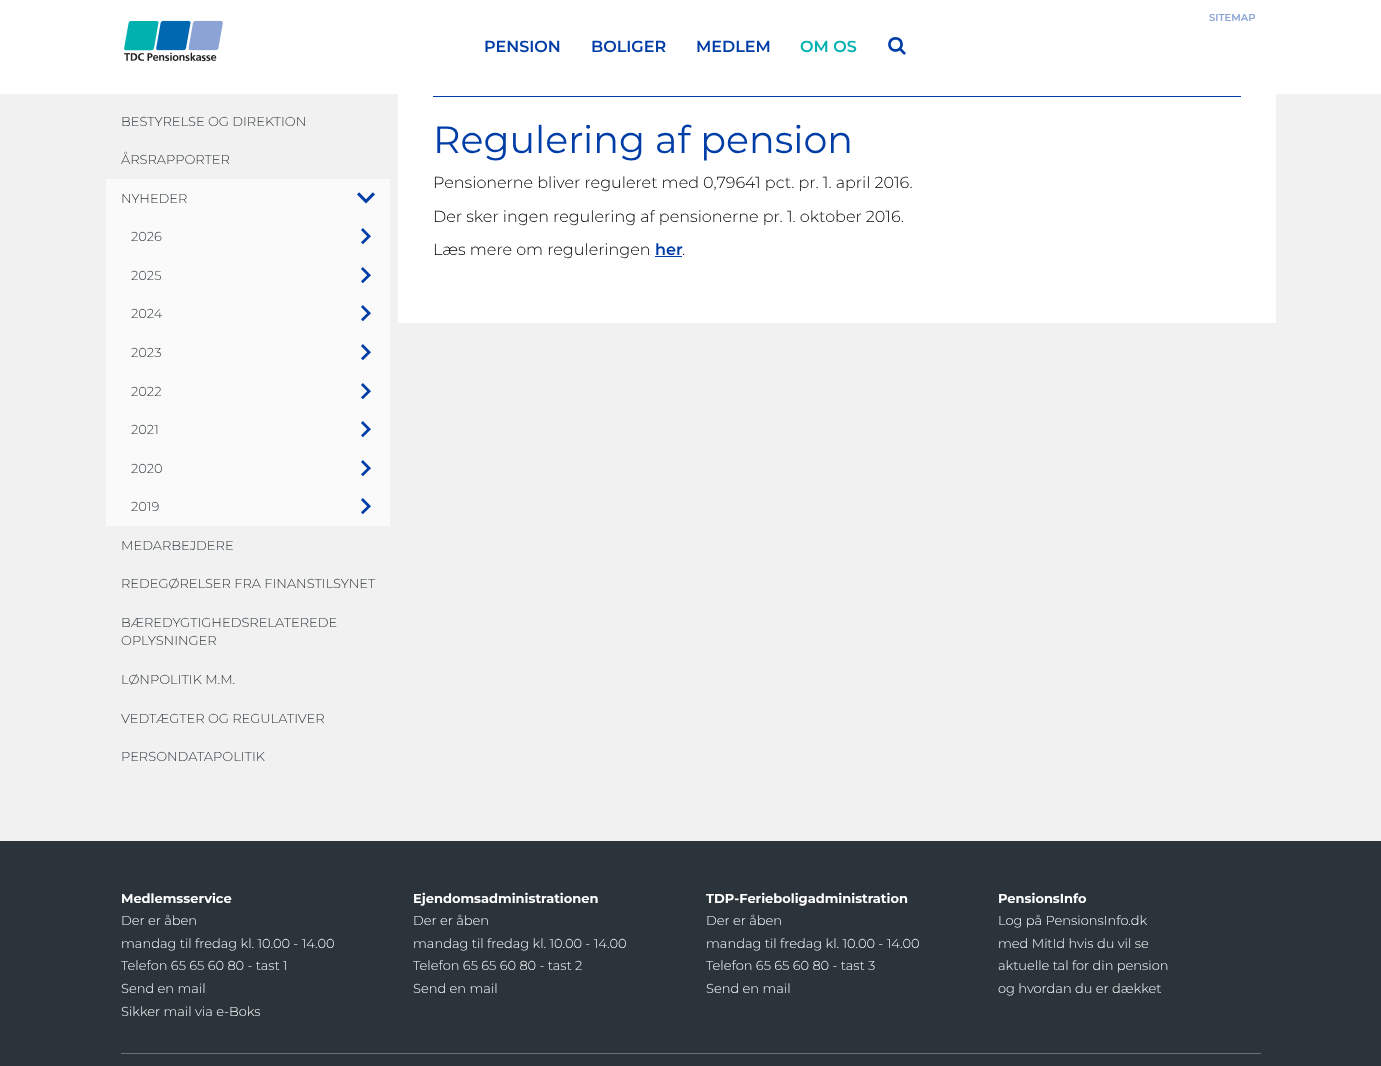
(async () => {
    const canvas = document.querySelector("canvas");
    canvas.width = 1381;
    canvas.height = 1066;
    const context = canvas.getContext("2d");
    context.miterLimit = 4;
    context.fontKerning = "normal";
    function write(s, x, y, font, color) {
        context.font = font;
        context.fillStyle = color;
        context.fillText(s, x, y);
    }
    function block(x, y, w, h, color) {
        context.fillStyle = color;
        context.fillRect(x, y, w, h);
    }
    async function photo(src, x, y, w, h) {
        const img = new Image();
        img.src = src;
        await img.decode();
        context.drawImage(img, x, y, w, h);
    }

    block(0, 0, 1381, 1066, "rgb(241, 241, 241)");
    block(0, 0, 1381, 94, "rgb(255, 255, 255)");
    await photo("media/1.png", 124, 20, 99, 42);
    write("SITEMAP", 1209, 21, "600 10px Montserrat", "rgb(140, 164, 213)");
    write("PENSION", 484, 52, "600 16px Montserrat", "rgb(0, 61, 166)");
    write("BOLIGER", 591, 52, "600 16px Montserrat", "rgb(0, 61, 166)");
    write("MEDLEM", 696, 52, "600 16px Montserrat", "rgb(0, 61, 166)");
    write("OM OS", 800, 52, "600 16px Montserrat", "rgb(0, 177, 176)");
    await photo("media/2.png", 888, 37, 18, 18);
    write("BESTYRELSE OG DIREKTION", 121, 126, "300 13px Montserrat", "rgb(43, 52, 58)");
    write("ÅRSRAPPORTER", 121, 164, "300 13px Montserrat", "rgb(43, 52, 58)");
    block(106, 179, 284, 347, "rgb(250, 250, 250)");
    write("NYHEDER", 121, 203, "300 13px Montserrat", "rgb(43, 52, 58)");
    await photo("media/3.png", 357, 192, 18, 12);
    write("2026", 131, 241, "300 13px Montserrat", "rgb(43, 52, 58)");
    await photo("media/4.png", 361, 228, 10, 17);
    write("2025", 131, 280, "300 13px Montserrat", "rgb(43, 52, 58)");
    await photo("media/4.png", 361, 267, 10, 17);
    write("2024", 131, 318, "300 13px Montserrat", "rgb(43, 52, 58)");
    await photo("media/4.png", 361, 305, 10, 17);
    write("2023", 131, 357, "300 13px Montserrat", "rgb(43, 52, 58)");
    await photo("media/4.png", 361, 344, 10, 17);
    write("2022", 131, 396, "300 13px Montserrat", "rgb(43, 52, 58)");
    await photo("media/4.png", 361, 383, 10, 17);
    write("2021", 131, 434, "300 13px Montserrat", "rgb(43, 52, 58)");
    await photo("media/4.png", 361, 421, 10, 17);
    write("2020", 131, 473, "300 13px Montserrat", "rgb(43, 52, 58)");
    await photo("media/5.png", 361, 460, 10, 17);
    write("2019", 131, 511, "300 13px Montserrat", "rgb(43, 52, 58)");
    await photo("media/4.png", 361, 498, 10, 17);
    write("MEDARBEJDERE", 121, 550, "300 13px Montserrat", "rgb(43, 52, 58)");
    write("REDEGØRELSER FRA FINANSTILSYNET", 121, 588, "300 13px Montserrat", "rgb(43, 52, 58)");
    write("BÆREDYGTIGHEDSRELATEREDE", 121, 627, "300 13px Montserrat", "rgb(43, 52, 58)");
    write("OPLYSNINGER", 121, 645, "300 13px Montserrat", "rgb(43, 52, 58)");
    write("LØNPOLITIK M.M.", 121, 684, "300 13px Montserrat", "rgb(43, 52, 58)");
    write("VEDTÆGTER OG REGULATIVER", 121, 723, "300 13px Montserrat", "rgb(43, 52, 58)");
    write("PERSONDATAPOLITIK", 121, 761, "300 13px Montserrat", "rgb(43, 52, 58)");
    block(398, 94, 878, 229, "rgb(255, 255, 255)");
    block(433, 96, 808, 1, "rgb(0, 61, 166)");
    write("Regulering af pension", 433, 153, "38px Montserrat", "rgb(0, 61, 166)");
    write("Pensionerne bliver reguleret med 0,79641 pct. pr. 1. april 2016.", 433, 188, "300 16px Montserrat", "rgb(0, 0, 0)");
    write("Der sker ingen regulering af pensionerne pr. 1. oktober 2016.", 433, 222, "300 16px Montserrat", "rgb(0, 0, 0)");
    write("Læs mere om reguleringen", 433, 255, "300 16px Montserrat", "rgb(0, 0, 0)");
    write("her", 655, 255, "600 16px Montserrat", "rgb(0, 61, 166)");
    block(655, 256, 27, 1, "rgb(0, 61, 166)");
    write(".", 682, 255, "300 16px Montserrat", "rgb(0, 0, 0)");
    block(0, 841, 1381, 225, "rgb(43, 52, 58)");
    write("Medlemsservice", 121, 903, "bold 13px Montserrat", "rgb(255, 255, 255)");
    write("Der er åben", 121, 925, "300 13px Montserrat", "rgb(255, 255, 255)");
    write("mandag til fredag kl. 10.00 - 14.00", 121, 948, "300 13px Montserrat", "rgb(255, 255, 255)");
    write("Telefon 65 65 60 80 - tast 1", 121, 970, "300 13px Montserrat", "rgb(255, 255, 255)");
    write("Send en mail", 121, 993, "300 13px Montserrat", "rgb(255, 255, 255)");
    write("Sikker mail via e-Boks", 121, 1016, "300 13px Montserrat", "rgb(255, 255, 255)");
    write("Ejendomsadministrationen", 413, 903, "bold 13px Montserrat", "rgb(255, 255, 255)");
    write("Der er åben", 413, 925, "300 13px Montserrat", "rgb(255, 255, 255)");
    write("mandag til fredag kl. 10.00 - 14.00", 413, 948, "300 13px Montserrat", "rgb(255, 255, 255)");
    write("Telefon 65 65 60 80 - tast 2", 413, 970, "300 13px Montserrat", "rgb(255, 255, 255)");
    write("Send en mail", 413, 993, "300 13px Montserrat", "rgb(255, 255, 255)");
    write("TDP-Ferieboligadministration", 706, 903, "bold 13px Montserrat", "rgb(255, 255, 255)");
    write("Der er åben", 706, 925, "300 13px Montserrat", "rgb(255, 255, 255)");
    write("mandag til fredag kl. 10.00 - 14.00", 706, 948, "300 13px Montserrat", "rgb(255, 255, 255)");
    write("Telefon 65 65 60 80 - tast 3", 706, 970, "300 13px Montserrat", "rgb(255, 255, 255)");
    write("Send en mail", 706, 993, "300 13px Montserrat", "rgb(255, 255, 255)");
    write("PensionsInfo", 998, 903, "bold 13px Montserrat", "rgb(255, 255, 255)");
    write("Log på PensionsInfo.dk", 998, 925, "300 13px Montserrat", "rgb(255, 255, 255)");
    write("med MitId hvis du vil se", 998, 948, "300 13px Montserrat", "rgb(255, 255, 255)");
    write("aktuelle tal for din pension", 998, 970, "300 13px Montserrat", "rgb(255, 255, 255)");
    write("og hvordan du er dækket", 998, 993, "300 13px Montserrat", "rgb(255, 255, 255)");
    block(121, 1053, 1140, 1, "rgb(107, 113, 117)");
})();
